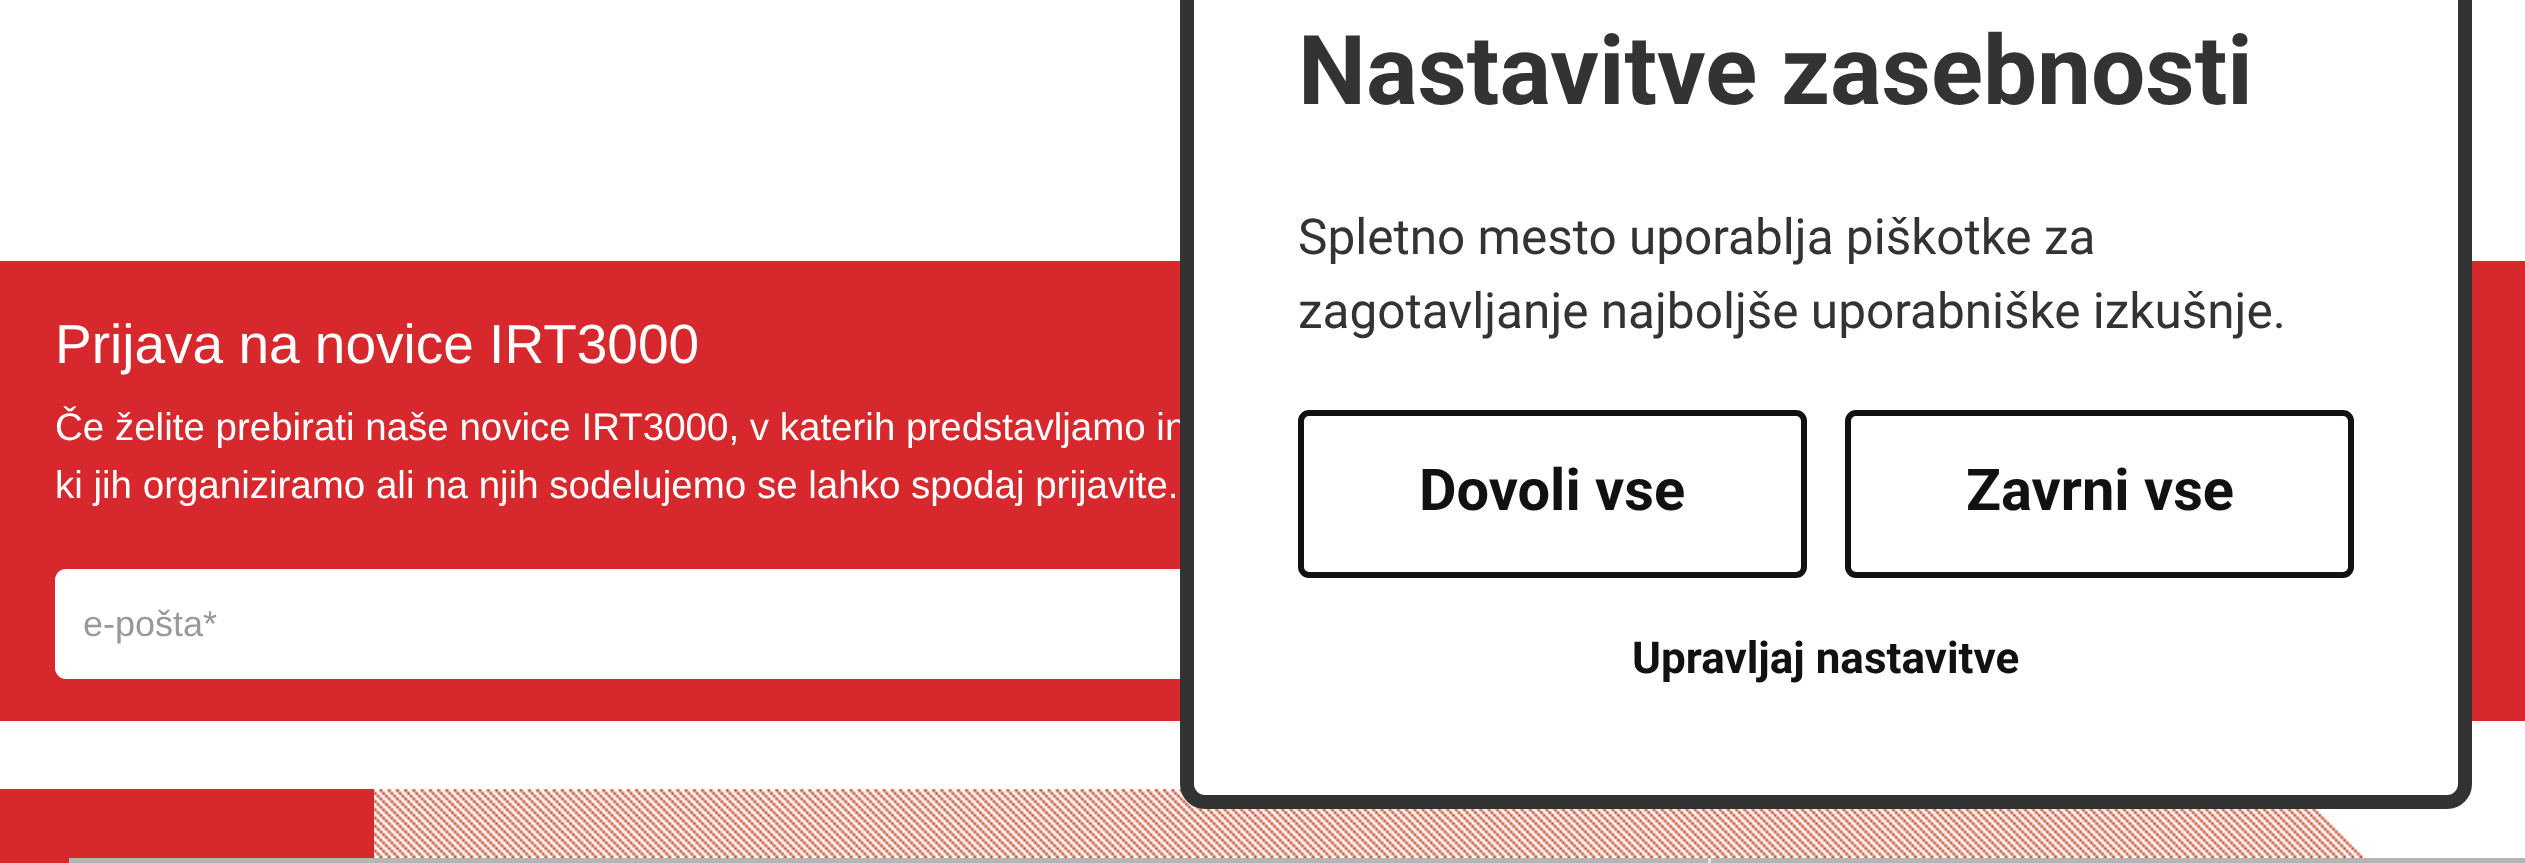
(async () => {
    const canvas = document.querySelector("canvas");
    canvas.width = 2525;
    canvas.height = 863;
    const context = canvas.getContext("2d");
    context.miterLimit = 4;
    context.fontKerning = "normal";
    function write(s, x, y, font, color) {
        context.font = font;
        context.fillStyle = color;
        context.fillText(s, x, y);
    }
    function block(x, y, w, h, color) {
        context.fillStyle = color;
        context.fillRect(x, y, w, h);
    }
    function card(x, y, w, h, r, color) {
        context.fillStyle = color;
        context.beginPath();
        context.roundRect(x, y, w, h, r);
        context.fill();
    }
    async function photo(src, x, y, w, h) {
        const img = new Image();
        img.src = src;
        await img.decode();
        context.drawImage(img, x, y, w, h);
    }

    block(0, 0, 2525, 863, "rgb(255, 255, 255)");
    block(0, 261, 2525, 460, "rgb(215, 40, 45)");
    write("Prijava na novice IRT3000", 55, 363, "55px Liberation Sans", "rgb(255, 255, 255)");
    write("Če želite prebirati naše novice IRT3000, v katerih predstavljamo in", 55, 440, "38.5px Liberation Sans", "rgb(255, 255, 255)");
    write("ki jih organiziramo ali na njih sodelujemo se lahko spodaj prijavite.", 55, 498, "38.5px Liberation Sans", "rgb(255, 255, 255)");
    card(55, 569, 1664, 110, 11, "rgb(255, 255, 255)");
    write("e-pošta*", 83, 636, "36px Liberation Sans", "rgb(153, 153, 153)");
    block(69, 858, 2456, 5, "rgb(181, 181, 181)");
    block(0, 858, 69, 5, "rgb(215, 40, 45)");
    block(0, 789, 374, 69, "rgb(215, 40, 45)");
    await photo("media/1.png", 374, 789, 1989, 69);
    block(1708, 858, 3, 5, "rgb(228, 229, 228)");
    context.fillStyle = "rgb(255, 255, 255)";
    context.beginPath();
    context.roundRect(1187, -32, 1278, 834, 18);
    context.fill();
    context.strokeStyle = "rgb(51, 51, 51)";
    context.lineWidth = 14;
    context.stroke();
    write("Nastavitve zasebnosti", 1298, 104, "bold 96.25px Roboto", "rgb(51, 51, 51)");
    write("Spletno mesto uporablja piškotke za", 1298, 254, "49.5px Roboto", "rgb(51, 51, 51)");
    write("zagotavljanje najboljše uporabniške izkušnje.", 1298, 328, "49.5px Roboto", "rgb(51, 51, 51)");
    context.beginPath();
    context.roundRect(1301, 413, 503, 162, 8);
    context.strokeStyle = "rgb(17, 17, 17)";
    context.lineWidth = 6;
    context.stroke();
    write("Dovoli vse", 1419, 510, "bold 57.75px Roboto", "rgb(17, 17, 17)");
    context.beginPath();
    context.roundRect(1848, 413, 503, 162, 8);
    context.stroke();
    write("Zavrni vse", 1966, 510, "bold 57.75px Roboto", "rgb(17, 17, 17)");
    write("Upravljaj nastavitve", 1632, 673, "bold 44px Roboto", "rgb(17, 17, 17)");
})();
